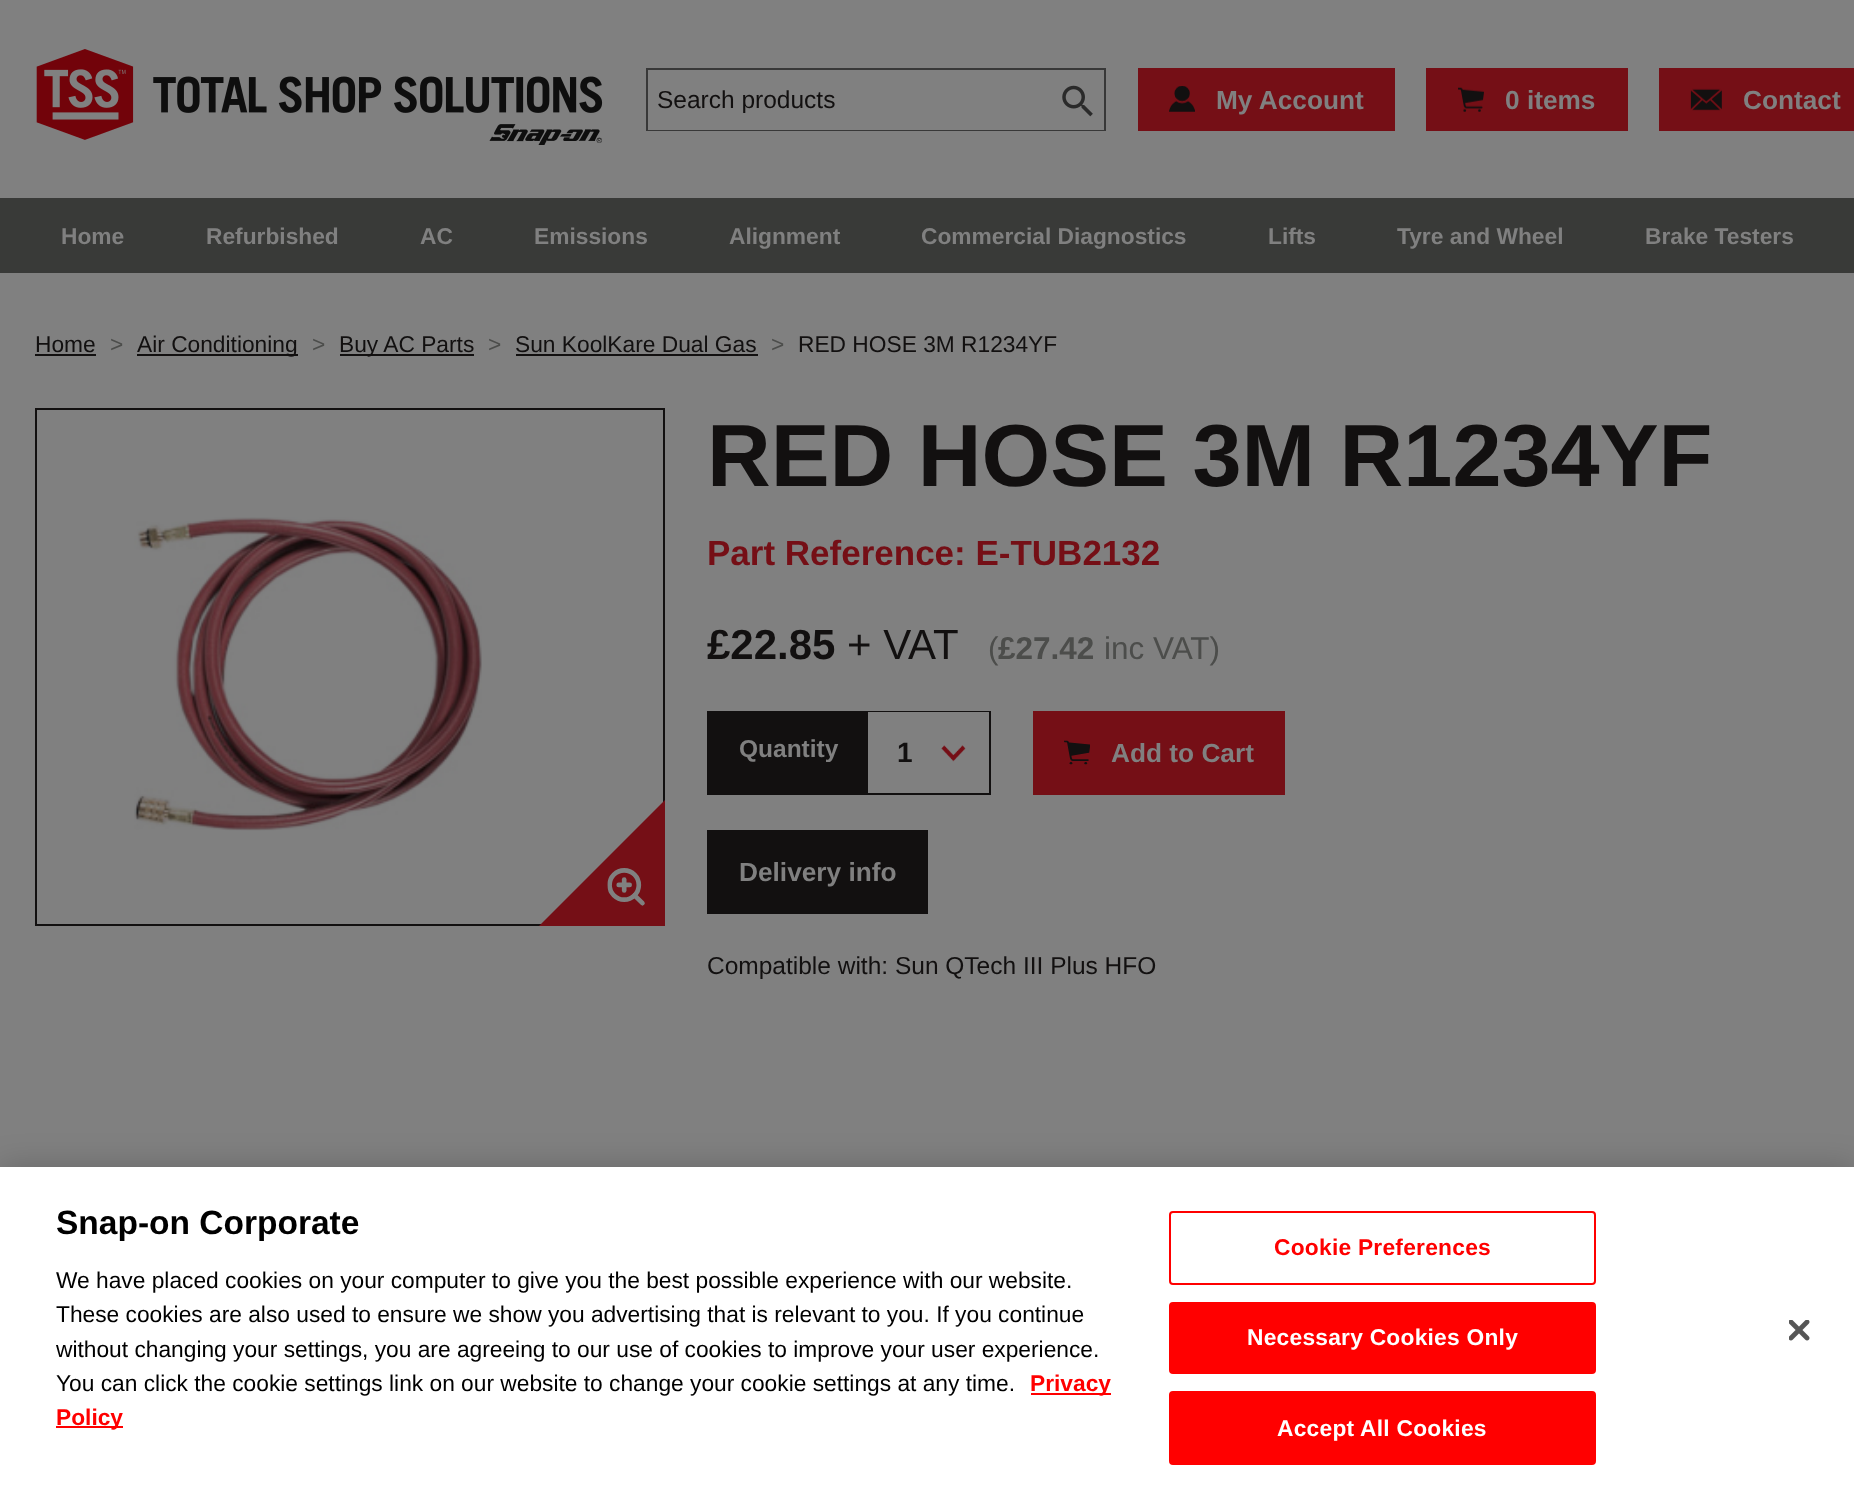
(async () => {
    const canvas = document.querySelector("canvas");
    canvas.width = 1854;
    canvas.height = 1499;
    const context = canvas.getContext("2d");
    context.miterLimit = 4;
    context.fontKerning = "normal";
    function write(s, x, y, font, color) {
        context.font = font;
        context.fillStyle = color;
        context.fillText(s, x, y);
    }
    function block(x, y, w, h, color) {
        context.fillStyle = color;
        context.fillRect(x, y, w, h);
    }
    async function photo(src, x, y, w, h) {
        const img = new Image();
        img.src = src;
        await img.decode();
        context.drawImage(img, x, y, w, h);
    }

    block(0, 0, 1854, 1499, "rgb(128, 128, 128)");
    await photo("media/1.png", 36, 49, 567, 96);
    context.strokeStyle = "rgb(56, 56, 56)";
    context.lineWidth = 2;
    context.strokeRect(647, 69, 458, 61);
    block(648, 129, 456, 1, "rgb(128, 128, 128)");
    await photo("media/2.png", 1062, 85, 31, 32);
    write("Search products", 657, 108, "24.5px Liberation Sans", "rgb(18, 16, 16)");
    block(1138, 68, 257, 63, "rgb(117, 15, 22)");
    await photo("media/3.png", 1169, 86, 26, 26);
    write("My Account", 1216, 109, "bold 26.25px Liberation Sans", "rgb(128, 128, 128)");
    block(1426, 68, 202, 63, "rgb(117, 15, 22)");
    await photo("media/4.png", 1458, 87, 26, 25);
    write("0 items", 1505, 109, "bold 26.25px Liberation Sans", "rgb(128, 128, 128)");
    block(1659, 68, 195, 63, "rgb(117, 15, 22)");
    await photo("media/5.png", 1690, 88, 32, 23);
    write("Contact", 1743, 109, "bold 26.25px Liberation Sans", "rgb(128, 128, 128)");
    block(0, 198, 1854, 75, "rgb(57, 58, 56)");
    write("Home", 61, 244, "bold 22.75px Liberation Sans", "rgb(128, 128, 128)");
    write("Refurbished", 206, 244, "bold 22.75px Liberation Sans", "rgb(128, 128, 128)");
    write("AC", 420, 244, "bold 22.75px Liberation Sans", "rgb(128, 128, 128)");
    write("Emissions", 534, 244, "bold 22.75px Liberation Sans", "rgb(128, 128, 128)");
    write("Alignment", 729, 244, "bold 22.75px Liberation Sans", "rgb(128, 128, 128)");
    write("Commercial Diagnostics", 921, 244, "bold 22.75px Liberation Sans", "rgb(128, 128, 128)");
    write("Lifts", 1268, 244, "bold 22.75px Liberation Sans", "rgb(128, 128, 128)");
    write("Tyre and Wheel", 1397, 244, "bold 22.75px Liberation Sans", "rgb(128, 128, 128)");
    write("Brake Testers", 1645, 244, "bold 22.75px Liberation Sans", "rgb(128, 128, 128)");
    write("Home", 35, 352, "22.75px Liberation Sans", "rgb(18, 16, 16)");
    block(35, 354, 61, 2, "rgb(18, 16, 16)");
    write(">", 110, 352, "22.75px Liberation Sans", "rgb(76, 77, 75)");
    block(137, 354, 161, 2, "rgb(18, 16, 16)");
    write("Air Conditioning", 137, 352, "22.75px Liberation Sans", "rgb(18, 16, 16)");
    write(">", 312, 352, "22.75px Liberation Sans", "rgb(76, 77, 75)");
    block(340, 354, 134, 2, "rgb(18, 16, 16)");
    write("Buy AC Parts", 339, 352, "22.75px Liberation Sans", "rgb(18, 16, 16)");
    write(">", 488, 352, "22.75px Liberation Sans", "rgb(76, 77, 75)");
    write("Sun KoolKare Dual Gas", 515, 352, "22.75px Liberation Sans", "rgb(18, 16, 16)");
    block(516, 354, 242, 2, "rgb(18, 16, 16)");
    write(">", 771, 352, "22.75px Liberation Sans", "rgb(76, 77, 75)");
    write("RED HOSE 3M R1234YF", 798, 352, "22.75px Liberation Sans", "rgb(18, 16, 16)");
    context.strokeStyle = "rgb(18, 16, 16)";
    context.strokeRect(36, 409, 628, 516);
    await photo("media/6.png", 134, 517, 348, 314);
    context.fillStyle = "rgb(117, 15, 22)";
    context.beginPath();
    context.moveTo(665, 926);
    context.lineTo(539, 926);
    context.lineTo(665, 800);
    context.closePath();
    context.fill();
    await photo("media/7.png", 607, 868, 38, 38);
    write("RED HOSE 3M R1234YF", 707, 486, "bold 88.25px Liberation Sans", "rgb(18, 16, 16)");
    write("Part Reference: E-TUB2132", 707, 565, "bold 35px Liberation Sans", "rgb(117, 15, 22)");
    write("£22.85", 707, 659, "bold 42px Liberation Sans", "rgb(18, 16, 16)");
    write("+ VAT", 847, 659, "42px Liberation Sans", "rgb(18, 16, 16)");
    write("(", 988, 659, "31.5px Liberation Sans", "rgb(76, 77, 75)");
    write("£27.42", 998, 659, "bold 31.5px Liberation Sans", "rgb(76, 77, 75)");
    write("inc VAT)", 1104, 659, "31.5px Liberation Sans", "rgb(76, 77, 75)");
    block(707, 711, 284, 84, "rgb(18, 16, 16)");
    write("Quantity", 739, 757, "bold 24.5px Liberation Sans", "rgb(128, 128, 128)");
    block(868, 712, 121, 81, "rgb(128, 128, 128)");
    await photo("media/8.png", 941, 745, 25, 17);
    write("1", 897, 762, "bold 28px Liberation Sans", "rgb(18, 16, 16)");
    block(1033, 711, 252, 84, "rgb(117, 15, 22)");
    await photo("media/9.png", 1064, 740, 26, 25);
    write("Add to Cart", 1111, 762, "bold 26.25px Liberation Sans", "rgb(128, 128, 128)");
    block(707, 830, 221, 84, "rgb(18, 16, 16)");
    write("Delivery info", 739, 881, "bold 26.25px Liberation Sans", "rgb(128, 128, 128)");
    write("Compatible with: Sun QTech III Plus HFO", 707, 974, "24.5px Liberation Sans", "rgb(18, 16, 16)");
    context.fillStyle = "rgba(0, 0, 0, 0.2)";
    context.filter = "blur(16px)";
    context.beginPath();
    context.rect(0, 1167, 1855, 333);
    context.fill();
    context.filter = "none";
    block(0, 1167, 1854, 332, "rgb(255, 255, 255)");
    write("Snap-on Corporate", 56, 1234, "bold 33.5px Liberation Sans", "rgb(0, 0, 0)");
    write("We have placed cookies on your computer to give you the best possible experience with our website.", 56, 1288, "22.75px Liberation Sans", "rgb(0, 0, 0)");
    write("These cookies are also used to ensure we show you advertising that is relevant to you. If you continue", 56, 1322, "22.75px Liberation Sans", "rgb(0, 0, 0)");
    write("without changing your settings, you are agreeing to our use of cookies to improve your user experience.", 56, 1357, "22.75px Liberation Sans", "rgb(0, 0, 0)");
    write("You can click the cookie settings link on our website to change your cookie settings at any time.", 56, 1391, "22.75px Liberation Sans", "rgb(0, 0, 0)");
    block(1031, 1393, 80, 2, "rgb(255, 0, 0)");
    write("Privacy", 1030, 1391, "bold 22.75px Liberation Sans", "rgb(255, 0, 0)");
    block(56, 1426, 67, 2, "rgb(255, 0, 0)");
    write("Policy", 56, 1425, "bold 22.75px Liberation Sans", "rgb(255, 0, 0)");
    context.beginPath();
    context.roundRect(1170, 1212, 425, 72, 3);
    context.strokeStyle = "rgb(255, 0, 0)";
    context.stroke();
    context.letterSpacing = "0.25px";
    write("Cookie Preferences", 1274, 1255, "bold 22.75px Liberation Sans", "rgb(255, 0, 0)");
    context.beginPath();
    context.roundRect(1170, 1303, 425, 70, 3);
    context.fill();
    context.stroke();
    write("Necessary Cookies Only", 1247, 1345, "bold 22.75px Liberation Sans", "rgb(255, 255, 255)");
    context.fillStyle = "rgb(255, 0, 0)";
    context.beginPath();
    context.roundRect(1170, 1392, 425, 72, 3);
    context.fill();
    context.stroke();
    write("Accept All Cookies", 1277, 1436, "bold 22.75px Liberation Sans", "rgb(255, 255, 255)");
    await photo("media/10.png", 1789, 1320, 21, 21);
})();
